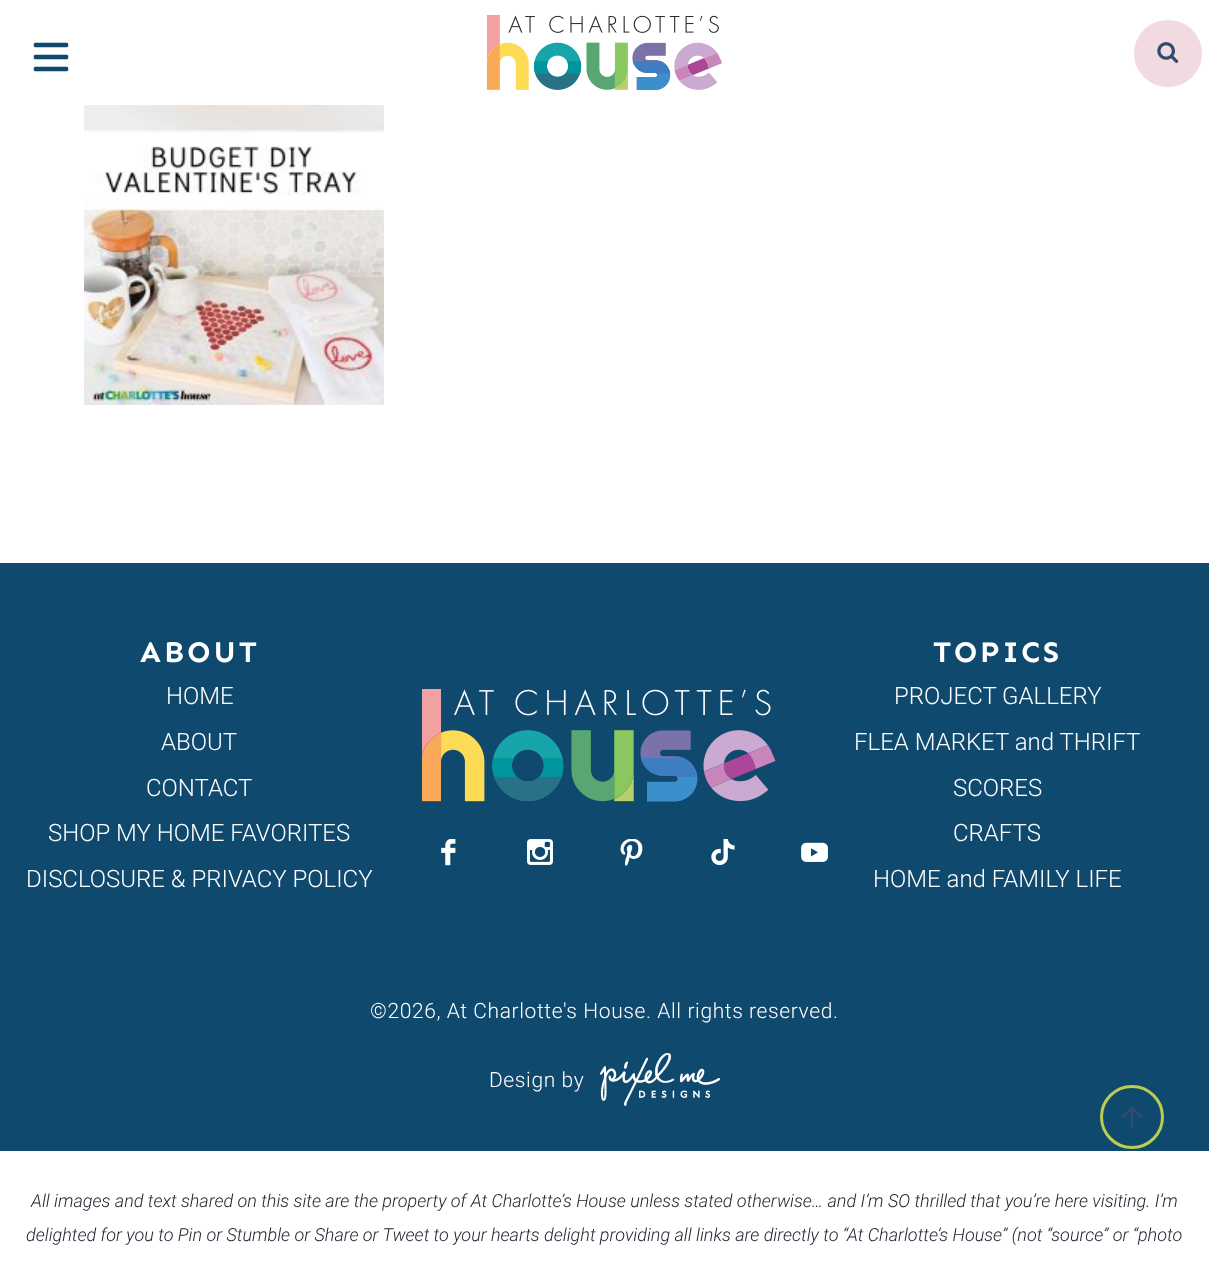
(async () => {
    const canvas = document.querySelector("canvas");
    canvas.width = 1209;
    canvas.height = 1268;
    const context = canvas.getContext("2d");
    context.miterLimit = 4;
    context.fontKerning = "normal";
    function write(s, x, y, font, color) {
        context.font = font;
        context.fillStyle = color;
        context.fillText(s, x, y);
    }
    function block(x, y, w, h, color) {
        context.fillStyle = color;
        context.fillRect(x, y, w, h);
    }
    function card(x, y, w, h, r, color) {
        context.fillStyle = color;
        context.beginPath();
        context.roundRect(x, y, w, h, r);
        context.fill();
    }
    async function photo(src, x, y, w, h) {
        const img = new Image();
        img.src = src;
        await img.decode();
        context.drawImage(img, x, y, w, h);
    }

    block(0, 0, 1209, 1268, "rgb(255, 255, 255)");
    await photo("media/1.png", 33, 42, 36, 30);
    await photo("media/2.png", 486, 15, 236, 75);
    card(1134, 20, 68, 67, 33.5, "rgb(242, 218, 225)");
    await photo("media/3.png", 1157, 42, 22, 21);
    await photo("media/4.png", 84, 105, 300, 300);
    block(0, 563, 1209, 588, "rgb(16, 73, 110)");
    context.letterSpacing = "3px";
    write("ABOUT", 140, 662, "bold 30px Sen", "rgb(255, 255, 255)");
    context.letterSpacing = "0px";
    write("HOME", 166, 704, "300 24px Roboto", "rgb(255, 255, 255)");
    write("ABOUT", 161, 750, "300 24px Roboto", "rgb(255, 255, 255)");
    write("CONTACT", 146, 796, "300 24px Roboto", "rgb(255, 255, 255)");
    write("SHOP MY HOME FAVORITES", 48, 841, "300 24px Roboto", "rgb(255, 255, 255)");
    write("DISCLOSURE & PRIVACY POLICY", 26, 887, "300 24px Roboto", "rgb(255, 255, 255)");
    await photo("media/5.png", 422, 689, 354, 113);
    await photo("media/6.png", 441, 839, 15, 27);
    await photo("media/7.png", 527, 839, 26, 26);
    await photo("media/8.png", 620, 839, 23, 27);
    await photo("media/9.png", 711, 839, 24, 27);
    await photo("media/10.png", 801, 842, 27, 20);
    context.letterSpacing = "3px";
    write("TOPICS", 933, 662, "bold 30px Sen", "rgb(255, 255, 255)");
    context.letterSpacing = "0px";
    write("PROJECT GALLERY", 894, 704, "300 24px Roboto", "rgb(255, 255, 255)");
    write("FLEA MARKET and THRIFT", 854, 750, "300 24px Roboto", "rgb(255, 255, 255)");
    write("SCORES", 953, 796, "300 24px Roboto", "rgb(255, 255, 255)");
    write("CRAFTS", 953, 841, "300 24px Roboto", "rgb(255, 255, 255)");
    write("HOME and FAMILY LIFE", 873, 887, "300 24px Roboto", "rgb(255, 255, 255)");
    context.letterSpacing = "0.6px";
    write("©2026, At Charlotte's House. All rights reserved.", 370, 1018, "300 21px Roboto", "rgb(255, 255, 255)");
    write("Design by", 489, 1087, "300 21px Roboto", "rgb(255, 255, 255)");
    await photo("media/11.png", 600, 1053, 120, 53);
    context.letterSpacing = "0px";
    write("All images and text shared on this site are the property of At Charlotte’s House unless stated otherwise… and I’m SO thrilled that you’re here visiting. I’m", 31, 1207, "italic 300 18px Roboto", "rgb(26, 32, 44)");
    write("delighted for you to Pin or Stumble or Share or Tweet to your hearts delight providing all links are directly to “At Charlotte’s House” (not “source” or “photo", 26, 1241, "italic 300 18px Roboto", "rgb(26, 32, 44)");
    context.beginPath();
    context.arc(1132, 1117, 30.5, 0, Math.PI * 2);
    context.strokeStyle = "rgb(188, 205, 81)";
    context.lineWidth = 3;
    context.stroke();
    await photo("media/12.png", 1121, 1106, 22, 22);
})();
